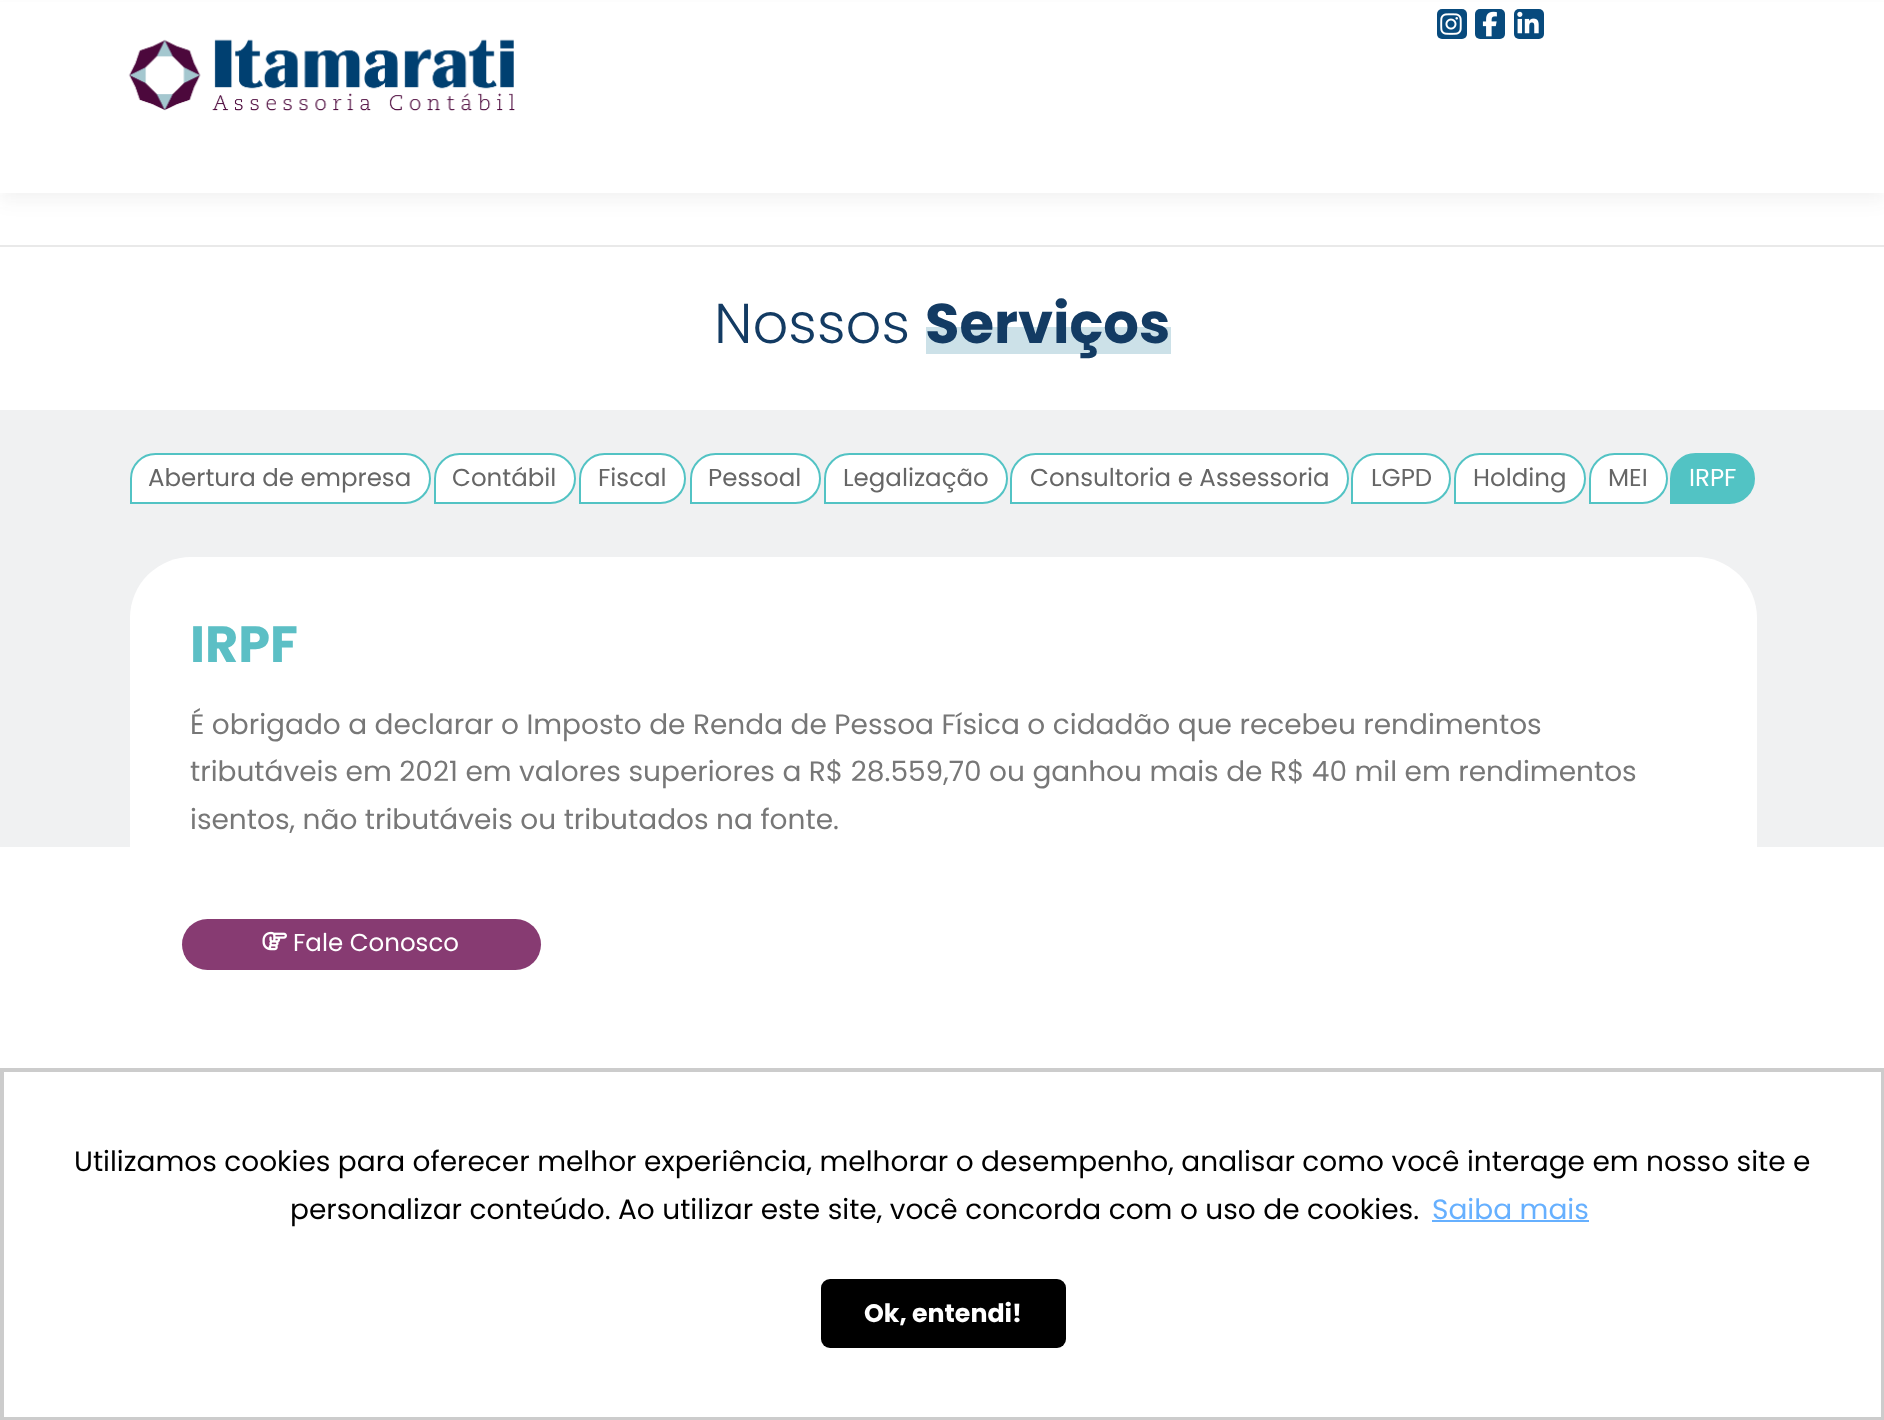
(async () => {
    const canvas = document.querySelector("canvas");
    canvas.width = 1884;
    canvas.height = 1420;
    const context = canvas.getContext("2d");
    context.miterLimit = 4;
    context.fontKerning = "normal";
    function write(s, x, y, font, color) {
        context.font = font;
        context.fillStyle = color;
        context.fillText(s, x, y);
    }
    function block(x, y, w, h, color) {
        context.fillStyle = color;
        context.fillRect(x, y, w, h);
    }
    function card(x, y, w, h, r, color) {
        context.fillStyle = color;
        context.beginPath();
        context.roundRect(x, y, w, h, r);
        context.fill();
    }
    async function photo(src, x, y, w, h) {
        const img = new Image();
        img.src = src;
        await img.decode();
        context.drawImage(img, x, y, w, h);
    }

    block(0, 0, 1884, 1420, "rgb(255, 255, 255)");
    context.fillStyle = "rgba(50, 50, 50, 0.06)";
    context.filter = "blur(9px)";
    context.beginPath();
    context.rect(0, 9, 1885, 192);
    context.fill();
    context.filter = "none";
    block(0, 2, 1884, 191, "rgb(255, 255, 255)");
    card(1437, 9, 30, 30, 5, "rgb(7, 74, 125)");
    await photo("media/1.png", 1440, 13, 22, 22);
    card(1475, 9, 30, 30, 5, "rgb(7, 74, 125)");
    await photo("media/2.png", 1482, 11, 15, 26);
    card(1514, 9, 30, 30, 5, "rgb(7, 74, 125)");
    await photo("media/3.png", 1517, 11, 22, 23);
    await photo("media/4.png", 128, 39, 387, 72);
    block(0, 245, 1884, 2, "rgb(233, 233, 233)");
    write("Nossos", 714, 343, "300 56px Poppins", "rgb(19, 59, 99)");
    block(926, 327, 245, 27, "rgb(204, 225, 232)");
    write("Serviços", 925, 343, "bold 56px Poppins", "rgb(19, 59, 99)");
    block(0, 410, 1884, 437, "rgb(240, 241, 242)");
    context.fillStyle = "rgb(255, 255, 255)";
    context.beginPath();
    context.roundRect(131, 454, 299, 49, [24.5, 24.5, 24.5, 0]);
    context.fill();
    context.strokeStyle = "rgb(82, 195, 196)";
    context.lineWidth = 2;
    context.stroke();
    write("Abertura de empresa", 148, 486, "24.5px Poppins", "rgb(102, 102, 102)");
    context.fillStyle = "rgb(255, 255, 255)";
    context.beginPath();
    context.roundRect(435, 454, 140, 49, [24.5, 24.5, 24.5, 0]);
    context.fill();
    context.stroke();
    write("Contábil", 452, 486, "24.5px Poppins", "rgb(102, 102, 102)");
    context.fillStyle = "rgb(255, 255, 255)";
    context.beginPath();
    context.roundRect(580, 454, 105, 49, [24.5, 24.5, 24.5, 0]);
    context.fill();
    context.stroke();
    write("Fiscal", 598, 486, "24.5px Poppins", "rgb(102, 102, 102)");
    context.fillStyle = "rgb(255, 255, 255)";
    context.beginPath();
    context.roundRect(691, 454, 129, 49, [24.5, 24.5, 24.5, 0]);
    context.fill();
    context.stroke();
    write("Pessoal", 708, 486, "24.5px Poppins", "rgb(102, 102, 102)");
    context.fillStyle = "rgb(255, 255, 255)";
    context.beginPath();
    context.roundRect(825, 454, 182, 49, [24.5, 24.5, 24.5, 0]);
    context.fill();
    context.stroke();
    write("Legalização", 843, 486, "24.5px Poppins", "rgb(102, 102, 102)");
    context.fillStyle = "rgb(255, 255, 255)";
    context.beginPath();
    context.roundRect(1011, 454, 337, 49, [24.5, 24.5, 24.5, 0]);
    context.fill();
    context.stroke();
    write("Consultoria e Assessoria", 1030, 486, "24.5px Poppins", "rgb(102, 102, 102)");
    context.fillStyle = "rgb(255, 255, 255)";
    context.beginPath();
    context.roundRect(1352, 454, 98, 49, [24.5, 24.5, 24.5, 0]);
    context.fill();
    context.stroke();
    write("LGPD", 1371, 486, "24.5px Poppins", "rgb(102, 102, 102)");
    context.fillStyle = "rgb(255, 255, 255)";
    context.beginPath();
    context.roundRect(1455, 454, 130, 49, [24.5, 24.5, 24.5, 0]);
    context.fill();
    context.stroke();
    write("Holding", 1473, 486, "24.5px Poppins", "rgb(102, 102, 102)");
    context.fillStyle = "rgb(255, 255, 255)";
    context.beginPath();
    context.roundRect(1590, 454, 77, 49, [24.5, 24.5, 24.5, 0]);
    context.fill();
    context.stroke();
    write("MEI", 1608, 486, "24.5px Poppins", "rgb(102, 102, 102)");
    context.fillStyle = "rgb(82, 195, 196)";
    context.beginPath();
    context.roundRect(1671, 454, 83, 49, [24.5, 24.5, 24.5, 0]);
    context.fill();
    context.stroke();
    write("IRPF", 1689, 486, "24.5px Poppins", "rgb(255, 255, 255)");
    context.beginPath();
    context.roundRect(130, 557, 1627, 330, [61, 61, 0, 0]);
    context.fill();
    write("IRPF", 190, 662, "bold 51px Poppins", "rgb(92, 191, 197)");
    write("É obrigado a declarar o Imposto de Renda de Pessoa Física o cidadão que recebeu rendimentos", 190, 734, "28px Poppins", "rgb(119, 119, 119)");
    write("tributáveis em 2021 em valores superiores a R$ 28.559,70 ou ganhou mais de R$ 40 mil em rendimentos", 190, 781, "28px Poppins", "rgb(119, 119, 119)");
    write("isentos, não tributáveis ou tributados na fonte.", 190, 829, "28px Poppins", "rgb(119, 119, 119)");
    card(182, 919, 359, 51, 25.5, "rgb(135, 59, 114)");
    await photo("media/5.png", 262, 931, 25, 20);
    write("Fale Conosco", 293, 951, "24.5px Poppins", "rgb(255, 255, 255)");
    context.strokeStyle = "rgb(204, 204, 204)";
    context.lineWidth = 4;
    context.strokeRect(2, 1070, 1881, 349);
    write("Utilizamos cookies para oferecer melhor experiência, melhorar o desempenho, analisar como você interage em nosso site e", 74, 1171, "28px Poppins", "rgb(0, 0, 0)");
    write("personalizar conteúdo. Ao utilizar este site, você concorda com o uso de cookies.", 290, 1219, "28px Poppins", "rgb(0, 0, 0)");
    write("Saiba mais", 1432, 1219, "28px Poppins", "rgb(102, 176, 255)");
    block(1432, 1220, 157, 2, "rgb(102, 176, 255)");
    card(821, 1279, 245, 69, 9, "rgb(0, 0, 0)");
    write("Ok, entendi!", 864, 1322, "bold 25.25px Poppins", "rgb(255, 255, 255)");
})();
